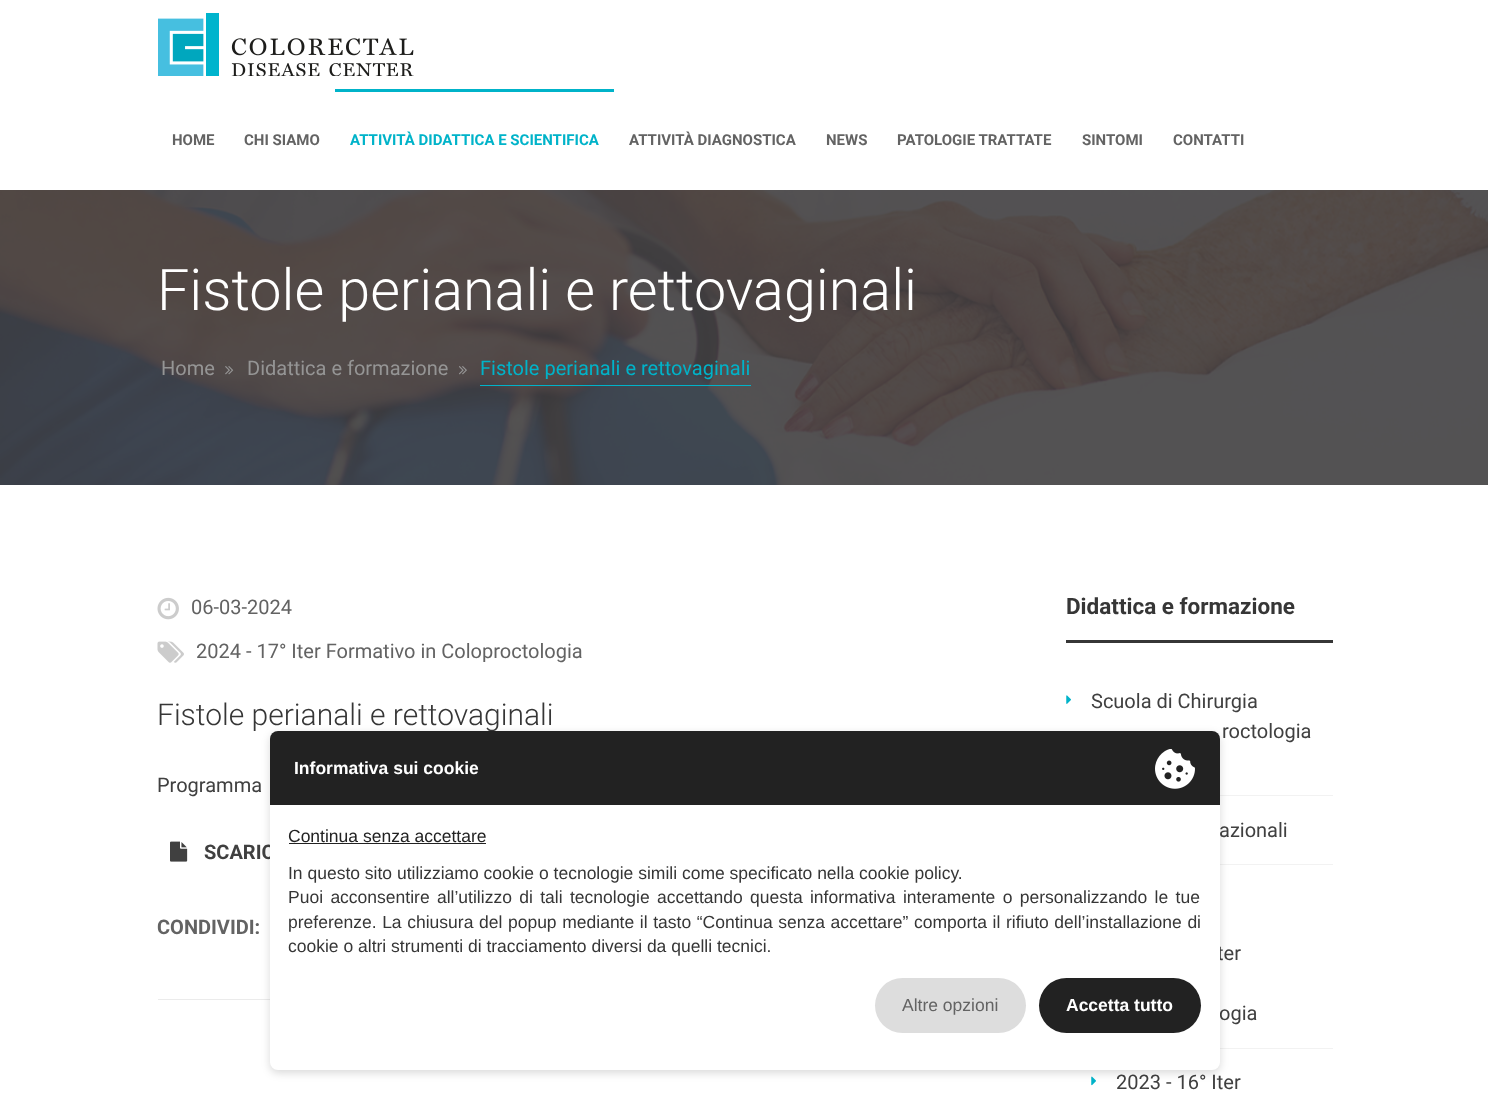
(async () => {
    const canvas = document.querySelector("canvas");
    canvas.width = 1488;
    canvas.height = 1101;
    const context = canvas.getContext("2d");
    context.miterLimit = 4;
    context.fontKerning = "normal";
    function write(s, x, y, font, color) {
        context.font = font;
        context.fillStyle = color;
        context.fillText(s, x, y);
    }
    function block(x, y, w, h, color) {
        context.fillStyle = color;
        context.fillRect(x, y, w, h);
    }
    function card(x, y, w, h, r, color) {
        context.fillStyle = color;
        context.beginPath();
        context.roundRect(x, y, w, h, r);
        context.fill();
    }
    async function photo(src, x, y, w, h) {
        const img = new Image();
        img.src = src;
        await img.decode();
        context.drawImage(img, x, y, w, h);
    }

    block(0, 0, 1488, 1101, "rgb(255, 255, 255)");
    await photo("media/1.png", 158, 13, 256, 63);
    write("HOME", 172, 145, "bold 15px Roboto", "rgb(99, 99, 99)");
    write("CHI SIAMO", 244, 145, "bold 15px Roboto", "rgb(99, 99, 99)");
    block(335, 89, 279, 3, "rgb(0, 179, 201)");
    write("ATTIVITÀ DIDATTICA E SCIENTIFICA", 350, 145, "bold 15px Roboto", "rgb(0, 179, 201)");
    write("ATTIVITÀ DIAGNOSTICA", 629, 145, "bold 15px Roboto", "rgb(99, 99, 99)");
    write("NEWS", 826, 145, "bold 15px Roboto", "rgb(99, 99, 99)");
    write("PATOLOGIE TRATTATE", 897, 145, "bold 15px Roboto", "rgb(99, 99, 99)");
    write("SINTOMI", 1082, 145, "bold 15px Roboto", "rgb(99, 99, 99)");
    write("CONTATTI", 1173, 145, "bold 15px Roboto", "rgb(99, 99, 99)");
    await photo("media/2.png", 0, 190, 1488, 295);
    write("Fistole perianali e rettovaginali", 157, 310, "300 57.5px Roboto", "rgb(255, 255, 255)");
    write("Home", 161, 375, "20px Roboto", "rgb(149, 149, 149)");
    await photo("media/3.png", 225, 366, 9, 9);
    write("Didattica e formazione", 247, 375, "20px Roboto", "rgb(149, 149, 149)");
    await photo("media/4.png", 459, 366, 8, 9);
    write("Fistole perianali e rettovaginali", 480, 375, "20px Roboto", "rgb(0, 179, 201)");
    block(480, 385, 271, 1, "rgb(0, 179, 201)");
    block(158, 999, 112, 1, "rgb(235, 235, 235)");
    await photo("media/5.png", 157, 597, 22, 23);
    write("06-03-2024", 191, 614, "20px Roboto", "rgb(99, 99, 99)");
    await photo("media/6.png", 157, 641, 27, 22);
    write("2024 - 17° Iter Formativo in Coloproctologia", 196, 658, "20px Roboto", "rgb(99, 99, 99)");
    write("Fistole perianali e rettovaginali", 157, 725, "300 30px Roboto", "rgb(54, 54, 54)");
    write("Programma", 157, 792, "20px Roboto", "rgb(64, 64, 64)");
    await photo("media/7.png", 170, 841, 18, 21);
    write("SCARIC", 204, 859, "bold 20px Roboto", "rgb(64, 64, 64)");
    write("CONDIVIDI:", 157, 934, "bold 20px Roboto", "rgb(99, 99, 99)");
    block(1066, 640, 267, 3, "rgb(54, 54, 54)");
    write("Didattica e formazione", 1066, 614, "bold 22.5px Roboto", "rgb(54, 54, 54)");
    block(1220, 795, 113, 1, "rgb(242, 242, 242)");
    await photo("media/8.png", 1066, 695, 5, 9);
    write("Scuola di Chirurgia", 1091, 708, "20px Roboto", "rgb(64, 64, 64)");
    write("roctologia", 1222, 738, "20px Roboto", "rgb(64, 64, 64)");
    block(1220, 864, 113, 1, "rgb(242, 242, 242)");
    write("azionali", 1219, 837, "20px Roboto", "rgb(64, 64, 64)");
    block(1220, 1048, 113, 1, "rgb(242, 242, 242)");
    write("ter", 1217, 960, "20px Roboto", "rgb(64, 64, 64)");
    write("ogia", 1219, 1020, "20px Roboto", "rgb(64, 64, 64)");
    await photo("media/9.png", 1091, 1076, 5, 10);
    write("2023 - 16° Iter", 1116, 1089, "20px Roboto", "rgb(64, 64, 64)");
    context.fillStyle = "rgba(0, 0, 0, 0.15)";
    context.filter = "blur(4px)";
    context.beginPath();
    context.roundRect(270, 734, 950, 339, 8);
    context.fill();
    context.filter = "none";
    card(270, 731, 950, 339, 8, "rgb(255, 255, 255)");
    context.fillStyle = "rgb(34, 34, 34)";
    context.beginPath();
    context.roundRect(270, 731, 950, 74, [8, 8, 0, 0]);
    context.fill();
    write("Informativa sui cookie", 294, 774, "bold 17.5px Liberation Sans", "rgb(255, 255, 255)");
    await photo("media/10.png", 1155, 749, 40, 40);
    write("Continua senza accettare", 288, 842, "17.5px Liberation Sans", "rgb(34, 34, 34)");
    block(289, 843, 197, 1, "rgb(34, 34, 34)");
    write("In questo sito utilizziamo cookie o tecnologie simili come specificato nella cookie policy.", 288, 879, "17.5px Liberation Sans", "rgb(54, 54, 54)");
    context.wordSpacing = "2.5px";
    write("Puoi acconsentire all’utilizzo di tali tecnologie accettando questa informativa interamente o personalizzando le tue", 288, 903, "17.5px Liberation Sans", "rgb(54, 54, 54)");
    context.wordSpacing = "0.75px";
    write("preferenze. La chiusura del popup mediante il tasto “Continua senza accettare” comporta il rifiuto dell’installazione di", 288, 928, "17.5px Liberation Sans", "rgb(54, 54, 54)");
    context.wordSpacing = "0px";
    write("cookie o altri strumenti di tracciamento diversi da quelli tecnici.", 288, 952, "17.5px Liberation Sans", "rgb(54, 54, 54)");
    card(875, 978, 151, 55, 27.5, "rgb(221, 221, 221)");
    write("Altre opzioni", 902, 1011, "17.5px Liberation Sans", "rgb(99, 99, 99)");
    card(1039, 978, 162, 55, 27.5, "rgb(34, 34, 34)");
    write("Accetta tutto", 1066, 1011, "bold 17.5px Liberation Sans", "rgb(255, 255, 255)");
})();
